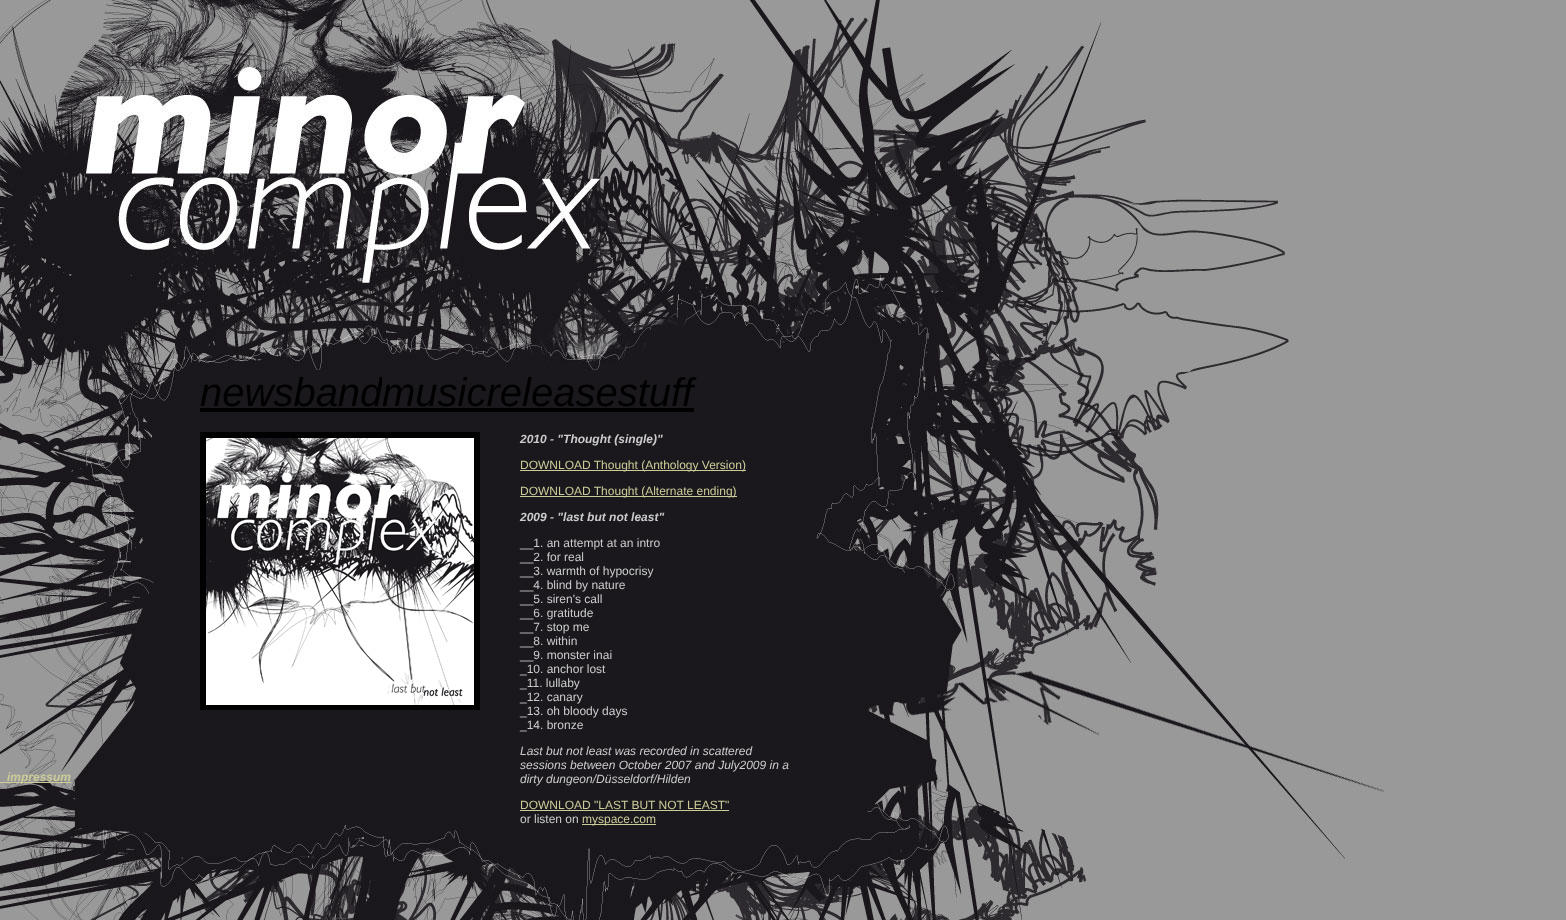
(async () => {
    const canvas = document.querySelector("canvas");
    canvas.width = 1566;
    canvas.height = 920;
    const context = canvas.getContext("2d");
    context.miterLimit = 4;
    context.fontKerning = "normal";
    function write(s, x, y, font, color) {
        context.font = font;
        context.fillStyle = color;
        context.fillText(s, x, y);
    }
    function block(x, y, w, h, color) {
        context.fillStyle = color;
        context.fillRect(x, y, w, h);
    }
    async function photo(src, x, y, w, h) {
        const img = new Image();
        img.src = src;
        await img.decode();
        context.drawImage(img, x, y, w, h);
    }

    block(0, 0, 1566, 920, "rgb(153, 153, 153)");
    await photo("media/1.png", 0, 0, 1384, 920);
    block(312, 370, 16, 6, "rgb(27, 24, 29)");
    block(584, 370, 16, 6, "rgb(27, 24, 29)");
    write("newsband", 200, 406, "italic 40px Liberation Sans", "rgb(0, 0, 0)");
    block(200, 408, 494, 4, "rgb(0, 0, 0)");
    block(382, 377, 2, 7, "rgb(27, 24, 29)");
    write("musicreleasestuff", 382, 406, "italic 40px Liberation Sans", "rgb(0, 0, 0)");
    block(0, 782, 71, 1, "rgb(204, 204, 153)");
    write("impressum", 7, 781, "italic bold 12px Liberation Sans", "rgb(204, 204, 153)");
    await photo("media/2.png", 200, 432, 280, 278);
    write("2010 - \"Thought (single)\"", 520, 443, "italic bold 12px Liberation Sans", "rgb(204, 204, 204)");
    block(520, 470, 226, 1, "rgb(204, 204, 153)");
    write("DOWNLOAD Thought (Anthology Version)", 520, 469, "12px Liberation Sans", "rgb(204, 204, 153)");
    block(520, 496, 217, 1, "rgb(204, 204, 153)");
    write("DOWNLOAD Thought (Alternate ending)", 520, 495, "12px Liberation Sans", "rgb(204, 204, 153)");
    write("2009 - \"last but not least\"", 520, 521, "italic bold 12px Liberation Sans", "rgb(204, 204, 204)");
    write("__1. an attempt at an intro", 520, 547, "12px Liberation Sans", "rgb(204, 204, 204)");
    write("__2. for real", 520, 561, "12px Liberation Sans", "rgb(204, 204, 204)");
    write("__3. warmth of hypocrisy", 520, 575, "12px Liberation Sans", "rgb(204, 204, 204)");
    write("__4. blind by nature", 520, 589, "12px Liberation Sans", "rgb(204, 204, 204)");
    write("__5. siren's call", 520, 603, "12px Liberation Sans", "rgb(204, 204, 204)");
    write("__6. gratitude", 520, 617, "12px Liberation Sans", "rgb(204, 204, 204)");
    write("__7. stop me", 520, 631, "12px Liberation Sans", "rgb(204, 204, 204)");
    write("__8. within", 520, 645, "12px Liberation Sans", "rgb(204, 204, 204)");
    write("__9. monster inai", 520, 659, "12px Liberation Sans", "rgb(204, 204, 204)");
    write("_10. anchor lost", 520, 673, "12px Liberation Sans", "rgb(204, 204, 204)");
    write("_11. lullaby", 520, 687, "12px Liberation Sans", "rgb(204, 204, 204)");
    write("_12. canary", 520, 701, "12px Liberation Sans", "rgb(204, 204, 204)");
    write("_13. oh bloody days", 520, 715, "12px Liberation Sans", "rgb(204, 204, 204)");
    write("_14. bronze", 520, 729, "12px Liberation Sans", "rgb(204, 204, 204)");
    write("Last but not least was recorded in scattered", 520, 755, "italic 12px Liberation Sans", "rgb(204, 204, 204)");
    write("sessions between October 2007 and July2009 in a", 520, 769, "italic 12px Liberation Sans", "rgb(204, 204, 204)");
    write("dirty dungeon/Düsseldorf/Hilden", 520, 783, "italic 12px Liberation Sans", "rgb(204, 204, 204)");
    write("DOWNLOAD \"LAST BUT NOT LEAST\"", 520, 809, "12px Liberation Sans", "rgb(204, 204, 153)");
    block(520, 810, 209, 1, "rgb(204, 204, 153)");
    write("or listen on", 520, 823, "12px Liberation Sans", "rgb(204, 204, 204)");
    block(582, 824, 74, 1, "rgb(204, 204, 153)");
    write("myspace.com", 582, 823, "12px Liberation Sans", "rgb(204, 204, 153)");
})();
